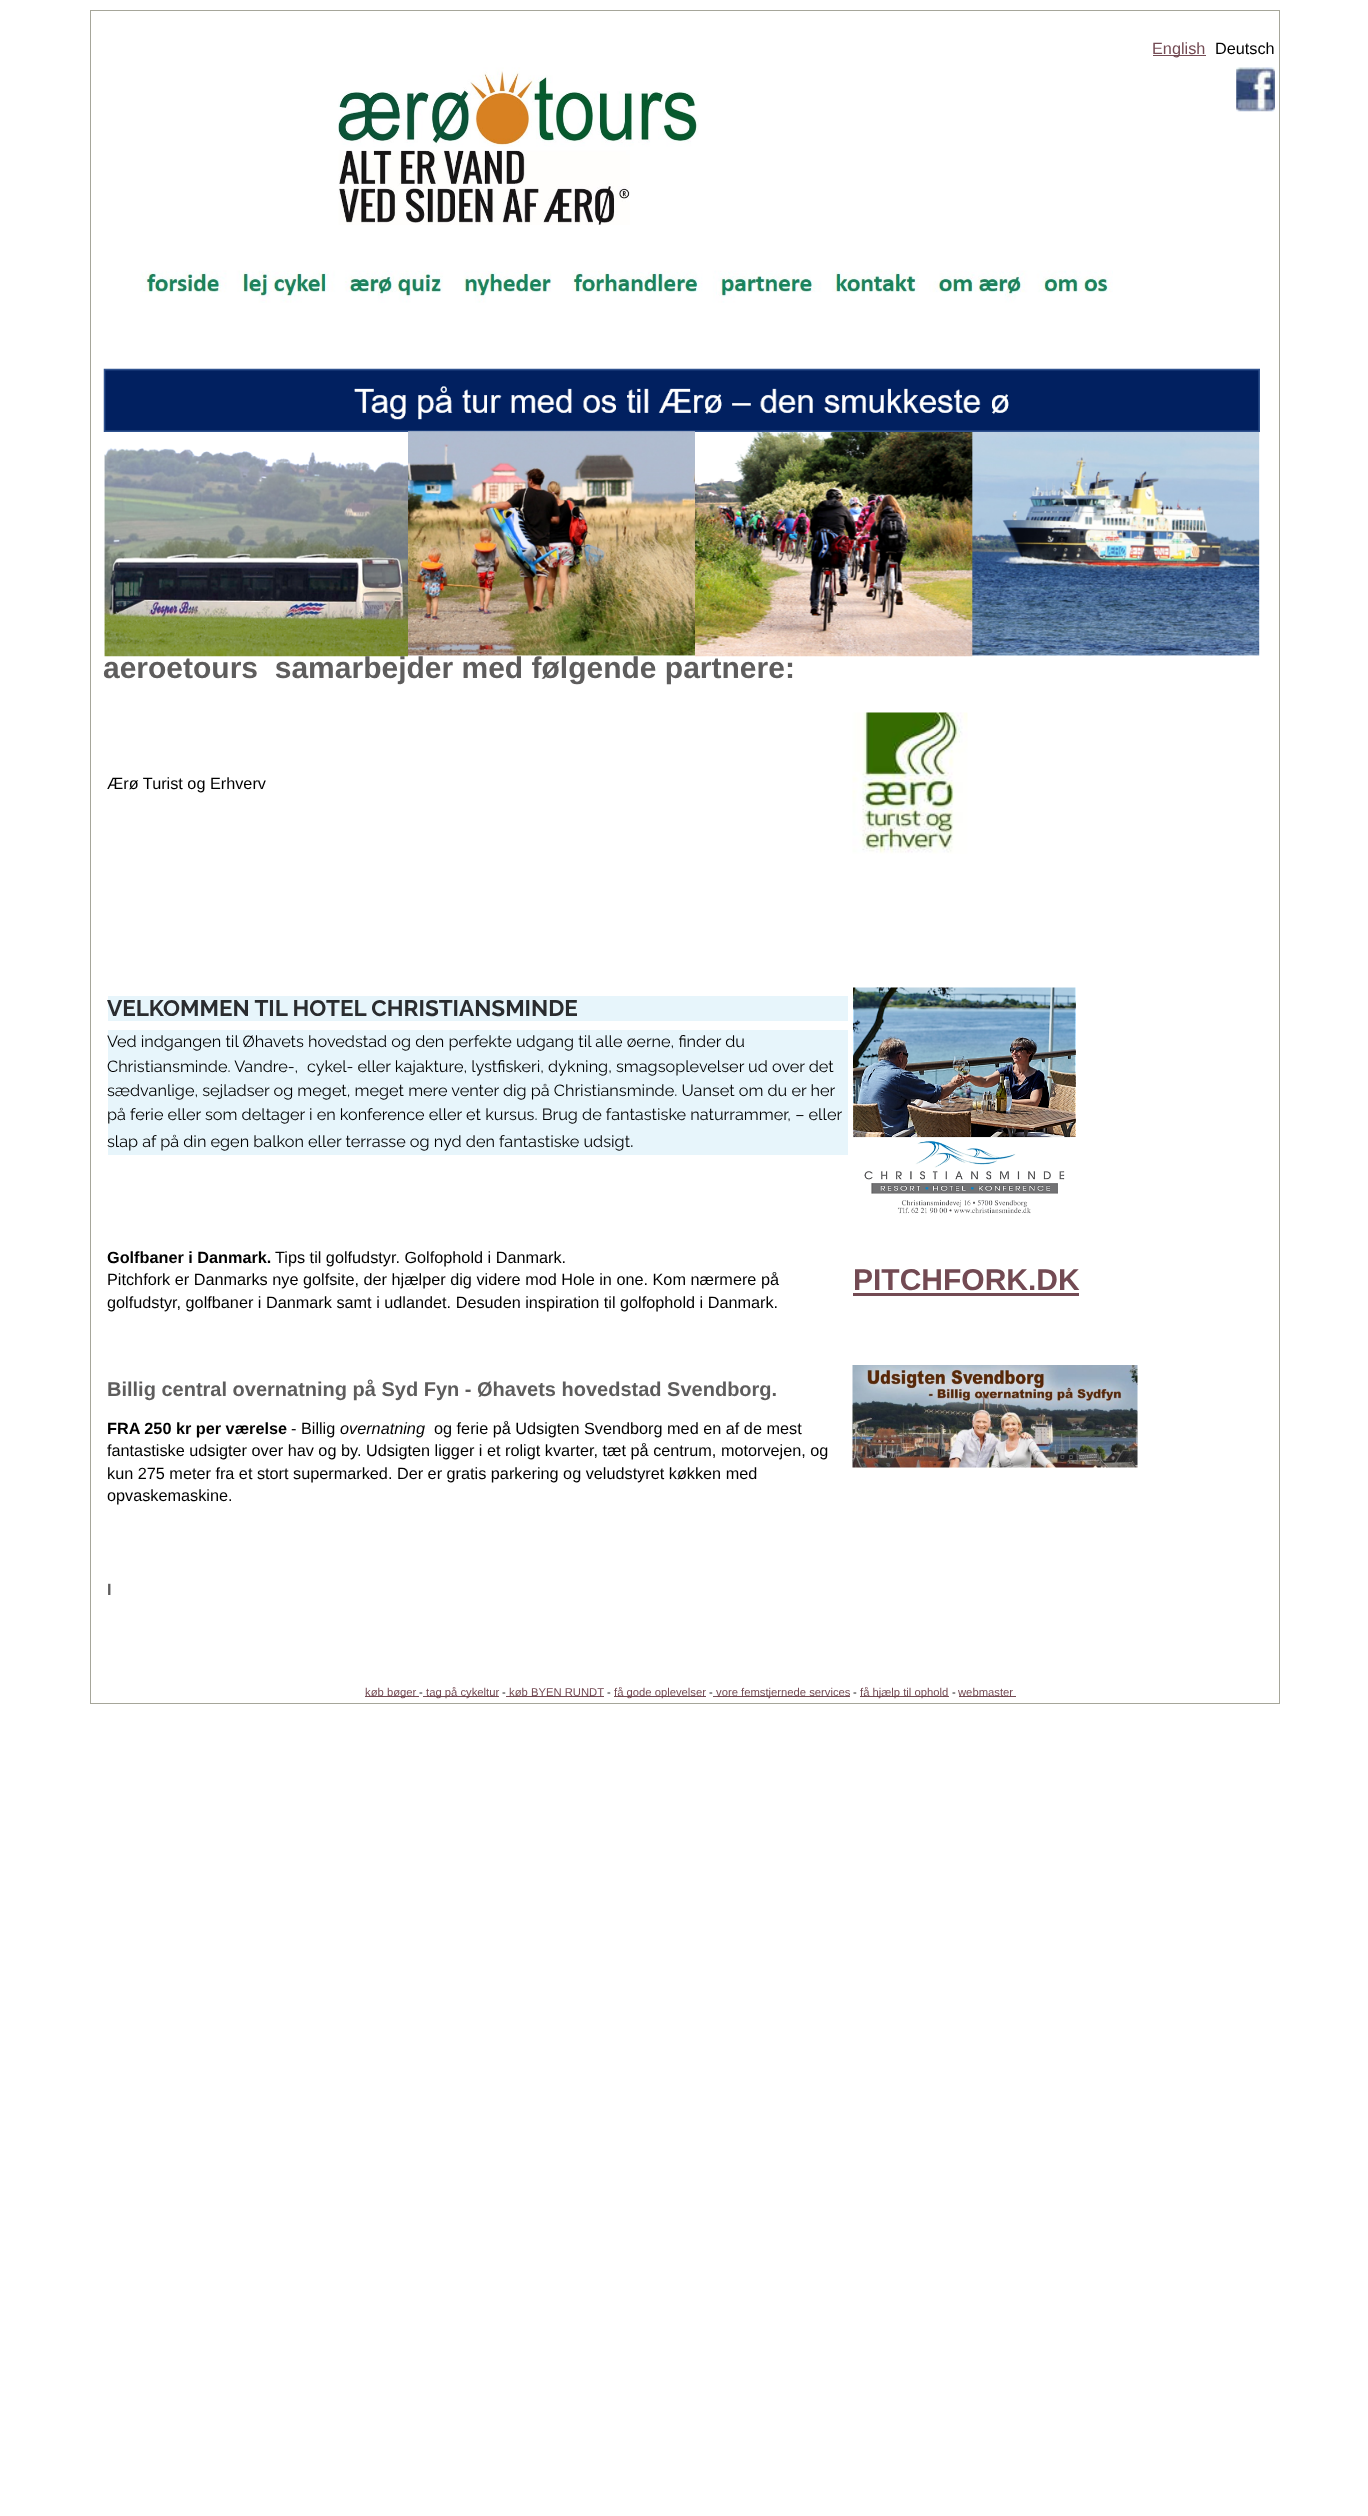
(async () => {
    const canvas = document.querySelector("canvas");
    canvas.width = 1368;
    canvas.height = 2516;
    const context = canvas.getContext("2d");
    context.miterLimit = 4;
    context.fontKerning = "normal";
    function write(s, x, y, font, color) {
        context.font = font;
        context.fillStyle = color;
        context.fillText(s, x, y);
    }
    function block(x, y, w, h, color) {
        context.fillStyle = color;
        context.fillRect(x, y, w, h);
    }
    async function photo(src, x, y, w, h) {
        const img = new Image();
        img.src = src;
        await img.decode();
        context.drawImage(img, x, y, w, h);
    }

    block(0, 0, 1368, 2516, "rgb(255, 255, 255)");
    context.strokeStyle = "rgb(166, 166, 154)";
    context.strokeRect(90.5, 10.5, 1189, 1693);
    block(1153, 55, 53, 1, "rgb(115, 74, 83)");
    write("English", 1152, 54, "16.25px Liberation Sans", "rgb(115, 74, 83)");
    write("Deutsch", 1215, 54, "16.25px Liberation Sans", "rgb(0, 0, 0)");
    await photo("media/1.png", 338, 67, 361, 158);
    await photo("media/2.png", 1236, 67, 39, 45);
    await photo("media/3.png", 140, 270, 973, 33);
    await photo("media/4.png", 103, 368, 1157, 289);
    write("aeroetours  samarbejder med følgende partnere:", 103, 678, "bold 30px Liberation Sans", "rgb(94, 93, 93)");
    write("Ærø Turist og Erhverv", 107, 789, "16.25px Liberation Sans", "rgb(0, 0, 0)");
    await photo("media/5.png", 852, 712, 116, 142);
    block(108, 996, 740, 25, "rgb(231, 245, 251)");
    write("VELKOMMEN TIL HOTEL CHRISTIANSMINDE", 107, 1016, "bold 22.5px Raleway", "rgb(42, 44, 47)");
    block(108, 1030, 740, 125, "rgb(231, 245, 251)");
    write("Ved indgangen til Øhavets hovedstad og den perfekte udgang til alle øerne, finder du", 107, 1047, "16.25px Raleway", "rgb(0, 0, 0)");
    write("Christiansminde. Vandre-,", 107, 1072, "16.25px Raleway", "rgb(0, 0, 0)");
    write("cykel- eller kajakture, lystfiskeri, dykning, smagsoplevelser ud over det", 307, 1072, "16.25px Raleway", "rgb(0, 0, 0)");
    write("sædvanlige, sejladser og meget, meget mere venter dig på Christiansminde. Uanset om du er her", 107, 1096, "16.25px Raleway", "rgb(0, 0, 0)");
    write("på ferie eller som deltager i en konference eller et kursus. Brug de fantastiske naturrammer, – eller", 107, 1120, "16.25px Raleway", "rgb(0, 0, 0)");
    write("slap af på din egen balkon eller terrasse og nyd den fantastiske udsigt", 107, 1147, "16.25px Raleway", "rgb(0, 0, 0)");
    write(".", 630, 1147, "19px Raleway", "rgb(0, 0, 0)");
    await photo("media/6.png", 853, 987, 223, 227);
    write("Golfbaner i Danmark.", 107, 1263, "bold 16.25px Liberation Sans", "rgb(0, 0, 0)");
    write("Tips til golfudstyr. Golfophold i Danmark.", 275, 1263, "16.25px Liberation Sans", "rgb(0, 0, 0)");
    write("Pitchfork er Danmarks nye golfsite, der hjælper dig videre mod Hole in one. Kom nærmere på", 107, 1285, "16.25px Liberation Sans", "rgb(0, 0, 0)");
    write("golfudstyr, golfbaner i Danmark samt i udlandet. Desuden inspiration til golfophold i Danmark.", 107, 1308, "16.25px Liberation Sans", "rgb(0, 0, 0)");
    write("PITCHFORK.DK", 853, 1290, "bold 30px Liberation Sans", "rgb(115, 74, 83)");
    block(853, 1293, 226, 3, "rgb(115, 74, 83)");
    write("Billig central overnatning på Syd Fyn - Øhavets hovedstad Svendborg.", 107, 1396, "bold 20px Liberation Sans", "rgb(94, 93, 93)");
    write("FRA 250 kr per værelse", 107, 1434, "bold 16.25px Liberation Sans", "rgb(0, 0, 0)");
    write("- Billig", 291, 1434, "16.25px Liberation Sans", "rgb(0, 0, 0)");
    write("overnatning", 340, 1434, "italic 16.25px Liberation Sans", "rgb(0, 0, 0)");
    write("og ferie på Udsigten Svendborg med en af de mest", 434, 1434, "16.25px Liberation Sans", "rgb(0, 0, 0)");
    write("fantastiske udsigter over hav og by. Udsigten ligger i et roligt kvarter, tæt på centrum, motorvejen, og", 107, 1456, "16.25px Liberation Sans", "rgb(0, 0, 0)");
    write("kun 275 meter fra et stort supermarked. Der er gratis parkering og veludstyret køkken med", 107, 1479, "16.25px Liberation Sans", "rgb(0, 0, 0)");
    write("opvaskemaskine.", 107, 1501, "16.25px Liberation Sans", "rgb(0, 0, 0)");
    await photo("media/7.png", 852, 1365, 286, 103);
    write("I", 107, 1595, "bold 16.25px Liberation Sans", "rgb(94, 93, 93)");
    block(365, 1696, 54, 1, "rgb(115, 74, 83)");
    write("køb bøger", 365, 1696, "11.25px Liberation Sans", "rgb(115, 74, 83)");
    write("-", 419, 1696, "11.25px Liberation Sans", "rgb(0, 0, 0)");
    block(423, 1696, 76, 1, "rgb(115, 74, 83)");
    write("tag på cykeltur", 426, 1696, "11.25px Liberation Sans", "rgb(115, 74, 83)");
    write("-", 502, 1696, "11.25px Liberation Sans", "rgb(0, 0, 0)");
    block(506, 1696, 98, 1, "rgb(115, 74, 83)");
    write("køb BYEN RUNDT", 509, 1696, "11.25px Liberation Sans", "rgb(115, 74, 83)");
    write("-", 607, 1696, "11.25px Liberation Sans", "rgb(0, 0, 0)");
    block(614, 1696, 92, 1, "rgb(115, 74, 83)");
    write("få gode oplevelser", 614, 1696, "11.25px Liberation Sans", "rgb(115, 74, 83)");
    write("-", 709, 1696, "11.25px Liberation Sans", "rgb(0, 0, 0)");
    block(713, 1696, 137, 1, "rgb(115, 74, 83)");
    write("vore femstjernede services", 716, 1696, "11.25px Liberation Sans", "rgb(115, 74, 83)");
    write("-", 853, 1696, "11.25px Liberation Sans", "rgb(0, 0, 0)");
    block(860, 1696, 89, 1, "rgb(115, 74, 83)");
    write("få hjælp til ophold", 860, 1696, "11.25px Liberation Sans", "rgb(115, 74, 83)");
    write("-", 952, 1696, "11.25px Liberation Sans", "rgb(0, 0, 0)");
    block(959, 1696, 57, 1, "rgb(115, 74, 83)");
    write("webmaster", 958, 1696, "11.25px Liberation Sans", "rgb(115, 74, 83)");
})();
